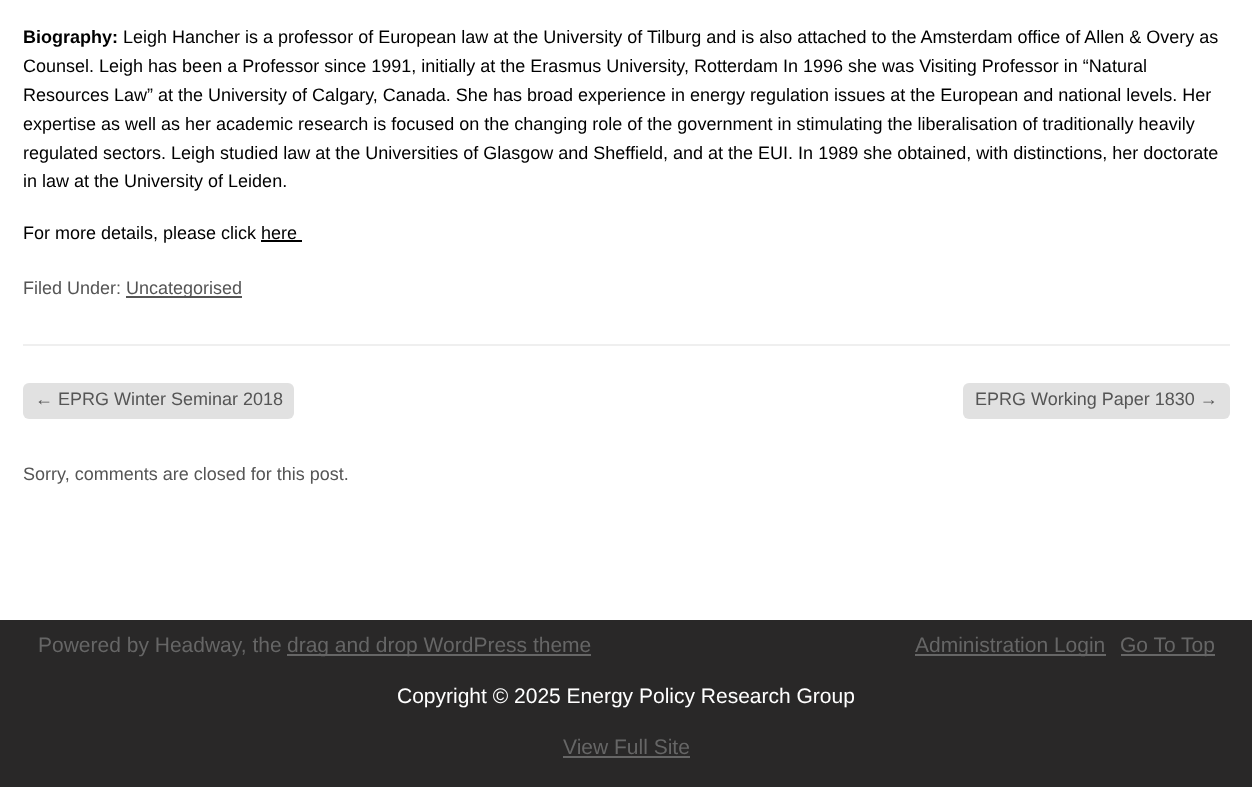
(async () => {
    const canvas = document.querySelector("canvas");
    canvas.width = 1252;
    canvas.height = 787;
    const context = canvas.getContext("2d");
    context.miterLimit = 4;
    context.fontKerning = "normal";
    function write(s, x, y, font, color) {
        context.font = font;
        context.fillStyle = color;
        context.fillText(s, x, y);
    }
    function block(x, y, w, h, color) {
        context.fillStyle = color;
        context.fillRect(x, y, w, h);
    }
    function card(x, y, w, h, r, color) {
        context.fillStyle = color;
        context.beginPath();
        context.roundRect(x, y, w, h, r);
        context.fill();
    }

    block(0, 0, 1252, 787, "rgb(255, 255, 255)");
    block(23, 344, 1207, 2, "rgb(239, 239, 239)");
    write("Biography:", 23, 43, "bold 18px Liberation Sans", "rgb(0, 0, 0)");
    write("Leigh Hancher is a professor of European law at the University of Tilburg and is also attached to the Amsterdam office of Allen & Overy as", 123, 43, "18px Liberation Sans", "rgb(0, 0, 0)");
    write("Counsel. Leigh has been a Professor since 1991, initially at the Erasmus University, Rotterdam In 1996 she was Visiting Professor in “Natural", 23, 72, "18px Liberation Sans", "rgb(0, 0, 0)");
    write("Resources Law” at the University of Calgary, Canada. She has broad experience in energy regulation issues at the European and national levels. Her", 23, 101, "18px Liberation Sans", "rgb(0, 0, 0)");
    write("expertise as well as her academic research is focused on the changing role of the government in stimulating the liberalisation of traditionally heavily", 23, 130, "18px Liberation Sans", "rgb(0, 0, 0)");
    write("regulated sectors. Leigh studied law at the Universities of Glasgow and Sheffield, and at the EUI. In 1989 she obtained, with distinctions, her doctorate", 23, 159, "18px Liberation Sans", "rgb(0, 0, 0)");
    write("in law at the University of Leiden.", 23, 187, "18px Liberation Sans", "rgb(0, 0, 0)");
    write("For more details, please click here", 23, 239, "18px Liberation Sans", "rgb(0, 0, 0)");
    block(261, 240, 41, 2, "rgb(0, 0, 0)");
    write("Filed Under:", 23, 294, "18px Liberation Sans", "rgb(85, 85, 85)");
    block(126, 296, 116, 2, "rgb(85, 85, 85)");
    write("Uncategorised", 126, 294, "18px Liberation Sans", "rgb(85, 85, 85)");
    card(23, 383, 271, 36, 6, "rgb(225, 225, 225)");
    write("← EPRG Winter Seminar 2018", 35, 405, "18px Liberation Sans", "rgb(85, 85, 85)");
    card(963, 383, 267, 36, 6, "rgb(225, 225, 225)");
    write("EPRG Working Paper 1830 →", 975, 405, "18px Liberation Sans", "rgb(85, 85, 85)");
    write("Sorry, comments are closed for this post.", 23, 480, "18px Liberation Sans", "rgb(85, 85, 85)");
    block(0, 620, 1252, 167, "rgb(41, 40, 40)");
    write("Powered by Headway, the", 38, 652, "21px Liberation Sans", "rgb(102, 102, 102)");
    block(287, 654, 304, 2, "rgb(102, 102, 102)");
    write("drag and drop WordPress theme", 287, 652, "21px Liberation Sans", "rgb(102, 102, 102)");
    block(915, 654, 191, 2, "rgb(102, 102, 102)");
    write("Administration Login", 915, 652, "21px Liberation Sans", "rgb(102, 102, 102)");
    block(1121, 654, 94, 2, "rgb(102, 102, 102)");
    write("Go To Top", 1120, 652, "21px Liberation Sans", "rgb(102, 102, 102)");
    write("Copyright © 2025 Energy Policy Research Group", 397, 703, "21px Liberation Sans", "rgb(255, 255, 255)");
    write("View Full Site", 563, 754, "21px Liberation Sans", "rgb(102, 102, 102)");
    block(563, 756, 127, 2, "rgb(102, 102, 102)");
})();
